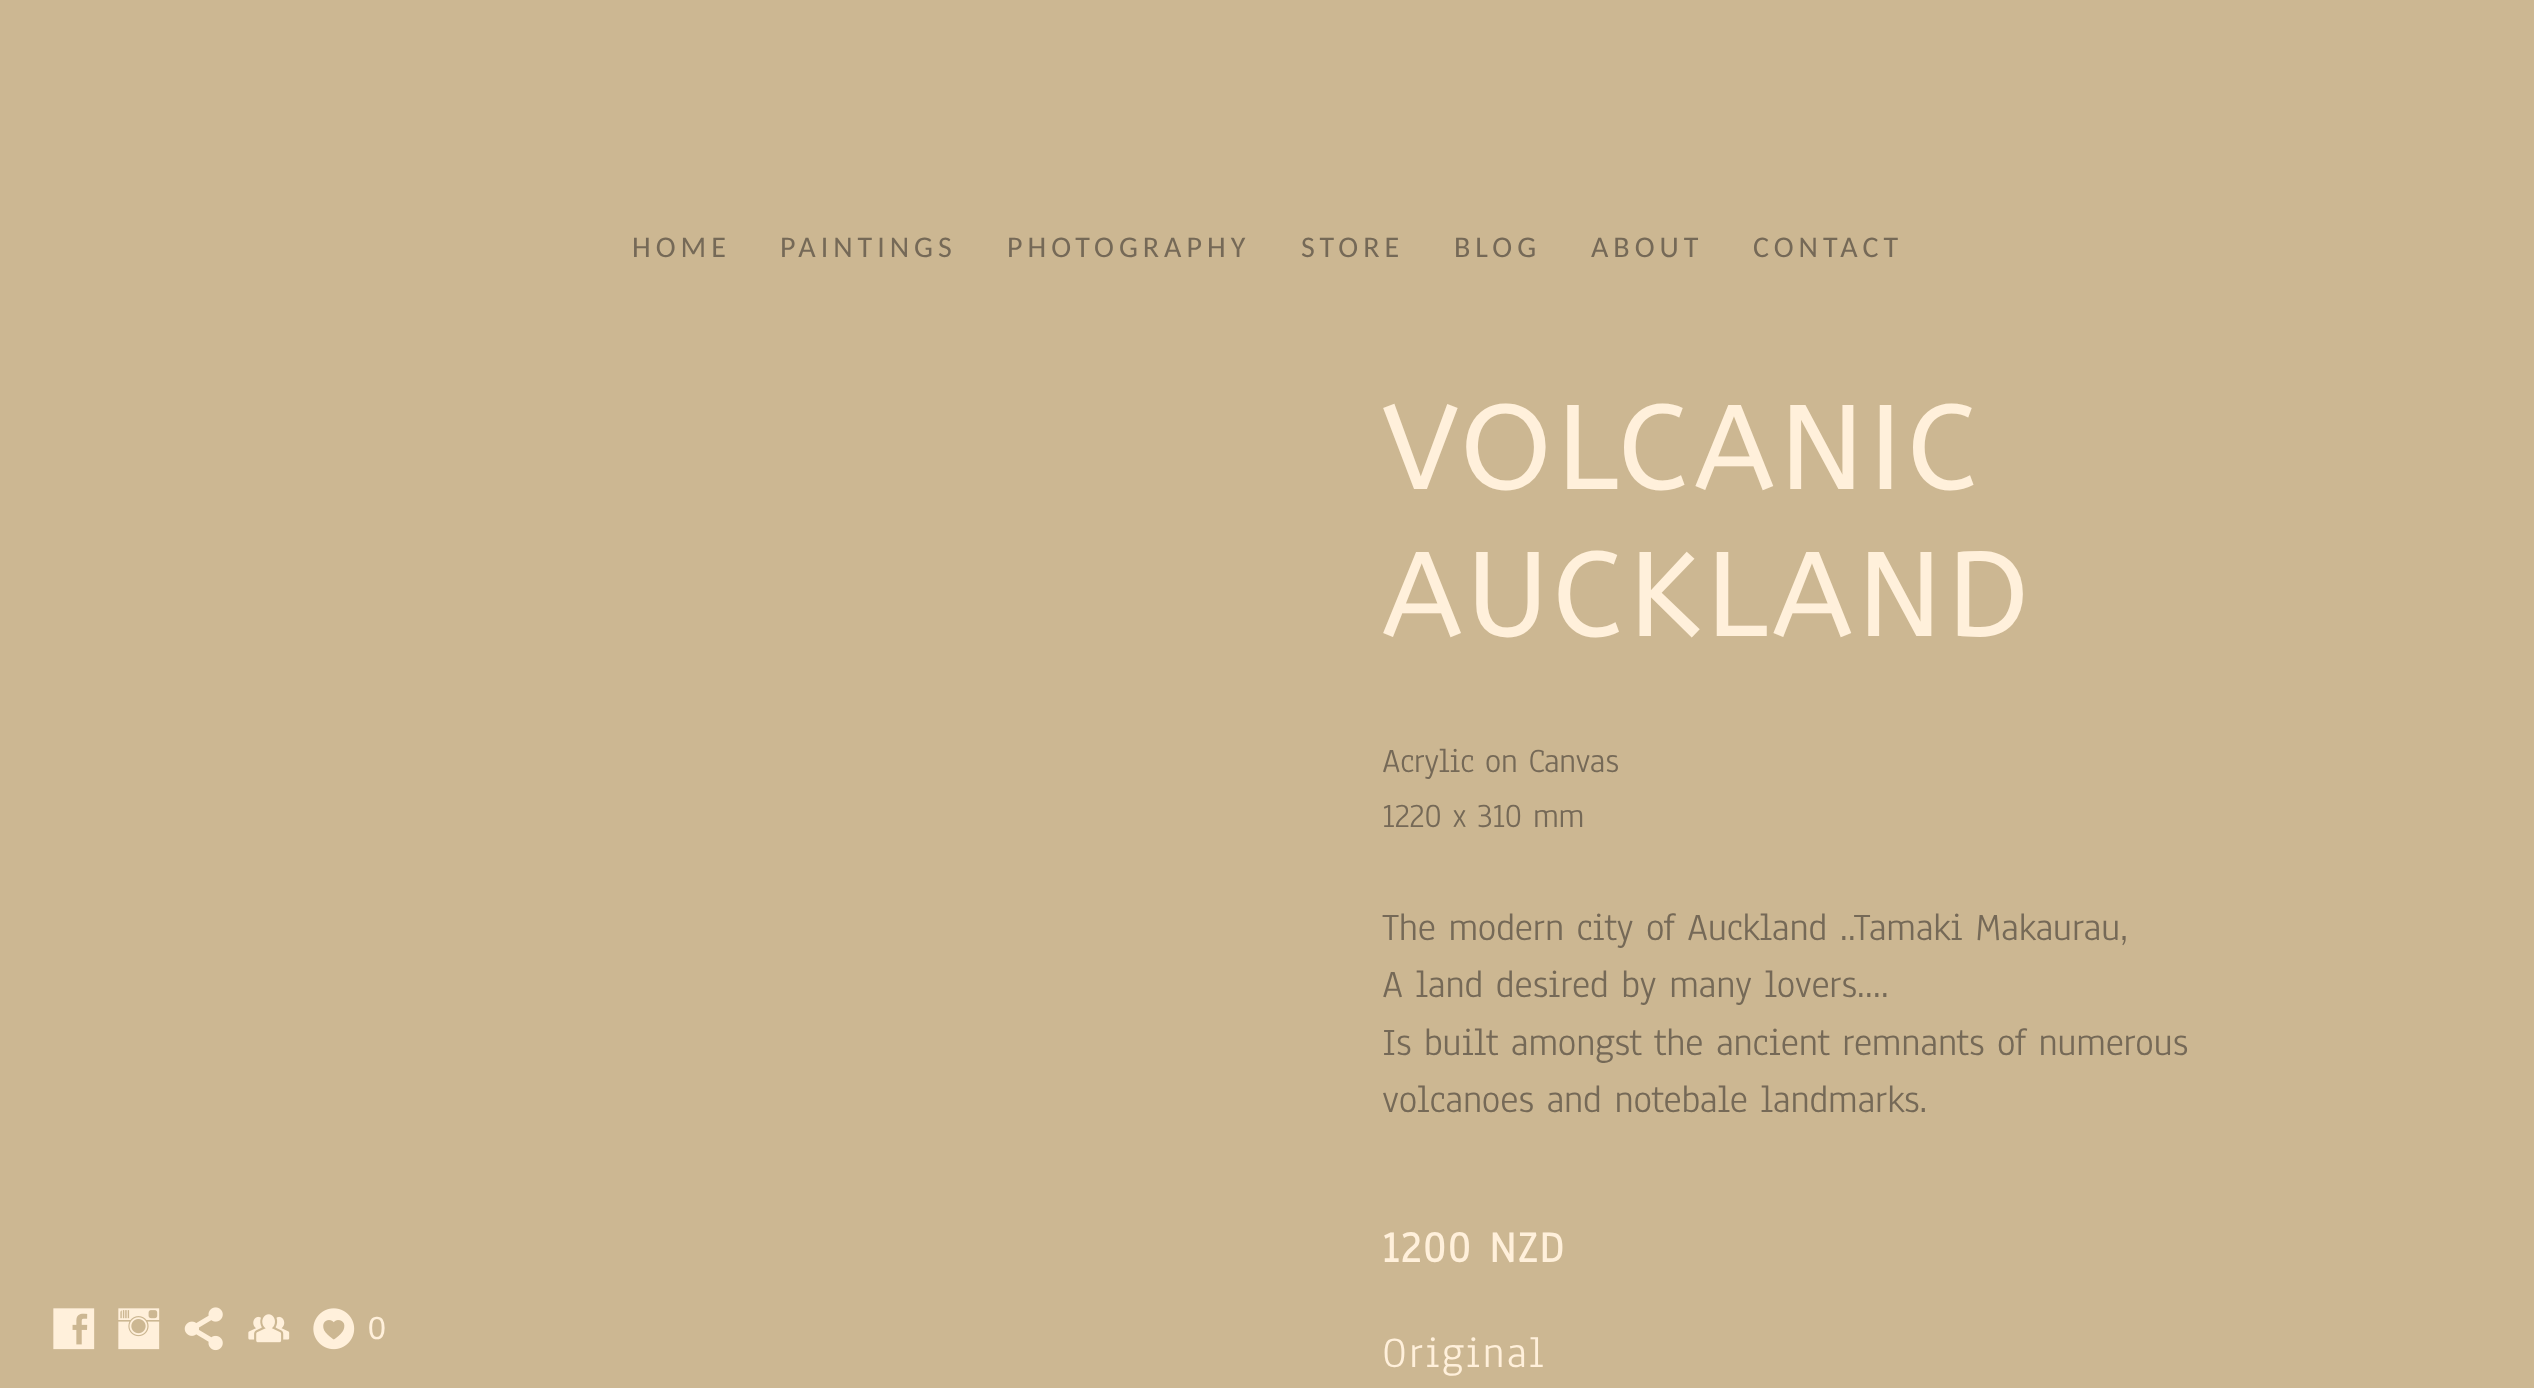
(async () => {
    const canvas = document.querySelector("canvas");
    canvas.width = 2534;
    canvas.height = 1388;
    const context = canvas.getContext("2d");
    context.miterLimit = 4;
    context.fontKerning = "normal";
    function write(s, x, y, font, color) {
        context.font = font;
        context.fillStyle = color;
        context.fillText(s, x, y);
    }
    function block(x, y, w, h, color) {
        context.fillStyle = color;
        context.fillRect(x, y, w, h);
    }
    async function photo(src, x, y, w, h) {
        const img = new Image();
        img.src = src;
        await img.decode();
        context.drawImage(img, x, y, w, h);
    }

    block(0, 0, 2534, 1388, "rgb(204, 183, 146)");
    context.letterSpacing = "5px";
    write("HOME", 632, 257, "30px Carlito", "rgb(117, 105, 87)");
    write("PAINTINGS", 780, 257, "30px Carlito", "rgb(117, 105, 87)");
    write("PHOTOGRAPHY", 1007, 257, "30px Carlito", "rgb(117, 105, 87)");
    write("STORE", 1301, 257, "30px Carlito", "rgb(117, 105, 87)");
    write("BLOG", 1454, 257, "30px Carlito", "rgb(117, 105, 87)");
    write("ABOUT", 1591, 257, "30px Carlito", "rgb(117, 105, 87)");
    write("CONTACT", 1753, 257, "30px Carlito", "rgb(117, 105, 87)");
    await photo("media/1.png", 53, 1308, 42, 42);
    await photo("media/2.png", 118, 1308, 42, 42);
    await photo("media/3.png", 184, 1307, 39, 44);
    await photo("media/4.png", 248, 1314, 42, 29);
    await photo("media/5.png", 313, 1308, 42, 42);
    context.letterSpacing = "0px";
    write("0", 368, 1339, "32px Liberation Sans", "rgb(255, 240, 219)");
    context.letterSpacing = "5px";
    write("VOLCANIC", 1382, 489, "120px ABeeZee", "rgb(255, 240, 219)");
    write("AUCKLAND", 1382, 636, "120px ABeeZee", "rgb(255, 240, 219)");
    context.letterSpacing = "-0.6px";
    write("Acrylic on Canvas", 1382, 772, "35px Anaheim", "rgb(117, 105, 87)");
    write("1220 x 310 mm", 1382, 827, "35px Anaheim", "rgb(117, 105, 87)");
    write("The modern city of Auckland ..Tamaki Makaurau,", 1382, 940, "40px Anaheim", "rgb(117, 105, 87)");
    write("A land desired by many lovers....", 1382, 997, "40px Anaheim", "rgb(117, 105, 87)");
    write("Is built amongst the ancient remnants of numerous", 1382, 1055, "40px Anaheim", "rgb(117, 105, 87)");
    write("volcanoes and notebale landmarks.", 1382, 1112, "40px Anaheim", "rgb(117, 105, 87)");
    context.letterSpacing = "2px";
    write("1200 NZD", 1382, 1262, "bold 45px Anaheim", "rgb(255, 240, 219)");
    write("Original", 1382, 1367, "45px Anaheim", "rgb(255, 240, 219)");
})();
